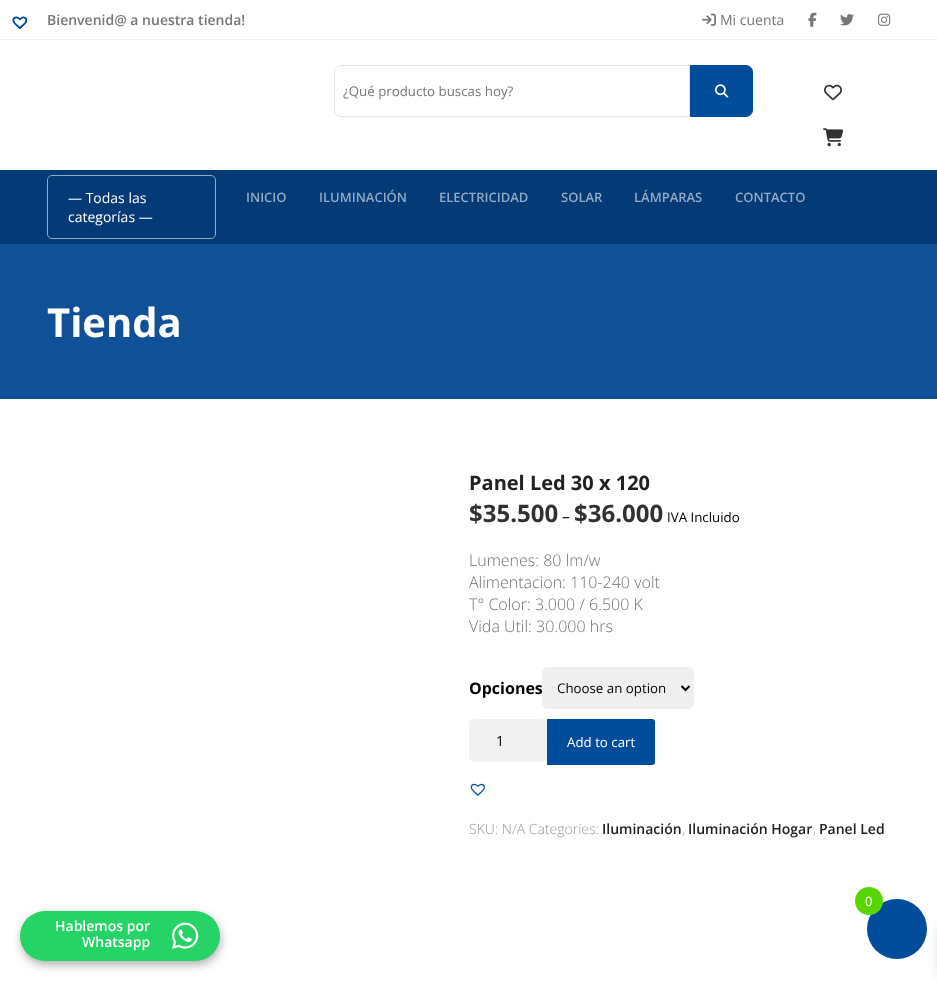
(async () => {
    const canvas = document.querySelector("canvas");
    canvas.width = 937;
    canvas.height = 981;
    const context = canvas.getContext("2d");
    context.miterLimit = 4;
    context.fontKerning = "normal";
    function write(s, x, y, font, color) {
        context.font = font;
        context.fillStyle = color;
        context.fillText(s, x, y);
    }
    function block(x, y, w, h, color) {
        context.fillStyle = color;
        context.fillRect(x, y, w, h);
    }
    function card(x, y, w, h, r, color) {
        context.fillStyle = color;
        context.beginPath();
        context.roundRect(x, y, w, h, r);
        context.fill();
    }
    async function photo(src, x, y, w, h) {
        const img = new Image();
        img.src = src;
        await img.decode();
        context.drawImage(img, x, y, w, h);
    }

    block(0, 0, 937, 981, "rgb(255, 255, 255)");
    block(0, 39, 937, 1, "rgb(240, 240, 240)");
    write("Bienvenid@ a nuestra tienda!", 47, 25, "600 14px Open Sans", "rgb(119, 119, 119)");
    await photo("media/1.png", 702, 13, 14, 13);
    write("Mi cuenta", 720, 25, "14px Open Sans", "rgb(119, 119, 119)");
    await photo("media/2.png", 808, 12, 9, 15);
    await photo("media/3.png", 840, 14, 14, 12);
    await photo("media/4.png", 878, 13, 13, 13);
    context.beginPath();
    context.roundRect(334.5, 65.5, 355, 51, [6.5, 0, 0, 6.5]);
    context.strokeStyle = "rgb(230, 230, 230)";
    context.stroke();
    write("¿Qué producto buscas hoy?", 343, 96, "13.3px Open Sans", "rgb(119, 119, 119)");
    context.fillStyle = "rgb(2, 76, 156)";
    context.beginPath();
    context.roundRect(690.5, 65.5, 62, 51, [0, 6.5, 6.5, 0]);
    context.fill();
    context.strokeStyle = "rgb(2, 76, 156)";
    context.stroke();
    await photo("media/5.png", 715, 84, 14, 14);
    await photo("media/6.png", 824, 84, 18, 17);
    await photo("media/7.png", 823, 128, 21, 19);
    block(0, 170, 937, 74, "rgb(4, 59, 119)");
    context.beginPath();
    context.roundRect(47.5, 175.5, 168, 63, 4.5);
    context.strokeStyle = "rgb(146, 170, 196)";
    context.stroke();
    write("— Todas las", 68, 203, "14px Open Sans", "rgb(255, 255, 255)");
    write("categorías —", 68, 222, "14px Open Sans", "rgb(255, 255, 255)");
    write("INICIO", 246, 202, "600 13px Open Sans", "rgb(146, 170, 196)");
    write("ILUMINACIÓN", 319, 202, "600 13px Open Sans", "rgb(146, 170, 196)");
    write("ELECTRICIDAD", 439, 202, "600 13px Open Sans", "rgb(146, 170, 196)");
    write("SOLAR", 561, 202, "600 13px Open Sans", "rgb(146, 170, 196)");
    write("LÁMPARAS", 634, 202, "600 13px Open Sans", "rgb(146, 170, 196)");
    write("CONTACTO", 735, 202, "600 13px Open Sans", "rgb(146, 170, 196)");
    block(0, 244, 937, 155, "rgb(15, 80, 151)");
    write("Tienda", 47, 337, "bold 40px Open Sans", "rgb(255, 255, 255)");
    await photo("media/8.png", 12, 16, 15, 13);
    await photo("media/9.png", 12, 16, 15, 13);
    await photo("media/10.png", 12, 16, 15, 13);
    await photo("media/11.png", 12, 16, 15, 13);
    write("Panel Led 30 x 120", 469, 490, "bold 20px Open Sans", "rgb(33, 33, 33)");
    write("$35.500", 469, 522, "bold 24px Open Sans", "rgb(49, 49, 49)");
    write("–", 562, 522, "16px Open Sans", "rgb(0, 0, 0)");
    write("$36.000", 574, 522, "bold 24px Open Sans", "rgb(49, 49, 49)");
    write("IVA Incluido", 667, 522, "13.3px Open Sans", "rgb(0, 0, 0)");
    write("Lumenes: 80 lm/w", 469, 566, "300 16px Open Sans", "rgb(113, 113, 113)");
    write("Alimentacion: 110-240 volt", 469, 588, "300 16px Open Sans", "rgb(113, 113, 113)");
    write("T° Color: 3.000 / 6.500 K", 469, 610, "300 16px Open Sans", "rgb(113, 113, 113)");
    write("Vida Util: 30.000 hrs", 469, 632, "300 16px Open Sans", "rgb(113, 113, 113)");
    write("Opciones", 469, 694, "bold 16px Open Sans", "rgb(0, 0, 0)");
    context.fillStyle = "rgb(239, 239, 239)";
    context.beginPath();
    context.roundRect(542.5, 667.5, 151, 41, 4.5);
    context.fill();
    context.strokeStyle = "rgb(240, 240, 240)";
    context.stroke();
    context.beginPath();
    context.moveTo(681.5, 686);
    context.lineTo(685.5, 690);
    context.lineTo(689.5, 686);
    context.strokeStyle = "rgb(0, 0, 0)";
    context.lineWidth = 2;
    context.stroke();
    write("Choose an option", 557, 693, "13.3px Open Sans", "rgb(0, 0, 0)");
    card(469, 719, 78, 43, 5, "rgb(240, 240, 240)");
    write("1", 496, 746, "14px Open Sans", "rgb(0, 0, 0)");
    context.fillStyle = "rgb(2, 76, 156)";
    context.beginPath();
    context.roundRect(547, 719, 108, 46, [0, 3, 3, 0]);
    context.fill();
    write("Add to cart", 567, 747, "13.3px Open Sans", "rgb(255, 255, 255)");
    await photo("media/8.png", 470, 783, 15, 13);
    write("SKU: N/A Categories:", 469, 834, "300 14px Open Sans", "rgb(153, 153, 153)");
    write("Iluminación", 602, 834, "600 14px Open Sans", "rgb(33, 33, 33)");
    write(",", 682, 834, "300 14px Open Sans", "rgb(153, 153, 153)");
    write("Iluminación Hogar", 688, 834, "600 14px Open Sans", "rgb(33, 33, 33)");
    write(",", 813, 834, "300 14px Open Sans", "rgb(153, 153, 153)");
    write("Panel Led", 819, 834, "600 14px Open Sans", "rgb(33, 33, 33)");
    context.fillStyle = "rgba(0, 0, 0, 0.1)";
    context.filter = "blur(5px)";
    context.beginPath();
    context.rect(937, 927, 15, 49);
    context.fill();
    context.filter = "none";
    context.fillStyle = "rgb(2, 76, 156)";
    context.beginPath();
    context.arc(897, 929, 30, 0, Math.PI * 2);
    context.fill();
    context.fillStyle = "rgb(89, 214, 0)";
    context.beginPath();
    context.arc(869, 901, 14, 0, Math.PI * 2);
    context.fill();
    write("0", 865, 906, "13px Open Sans", "rgb(255, 255, 255)");
    context.fillStyle = "rgba(0, 0, 0, 0.3)";
    context.filter = "blur(5px)";
    context.beginPath();
    context.roundRect(21, 915, 200, 50, 25);
    context.fill();
    context.filter = "none";
    card(20, 911, 200, 50, 25, "rgb(37, 211, 102)");
    write("Hablemos por", 55, 931, "600 14px Open Sans", "rgb(255, 255, 255)");
    write("Whatsapp", 82, 947, "600 14px Open Sans", "rgb(255, 255, 255)");
    await photo("media/12.png", 172, 922, 27, 27);
})();
